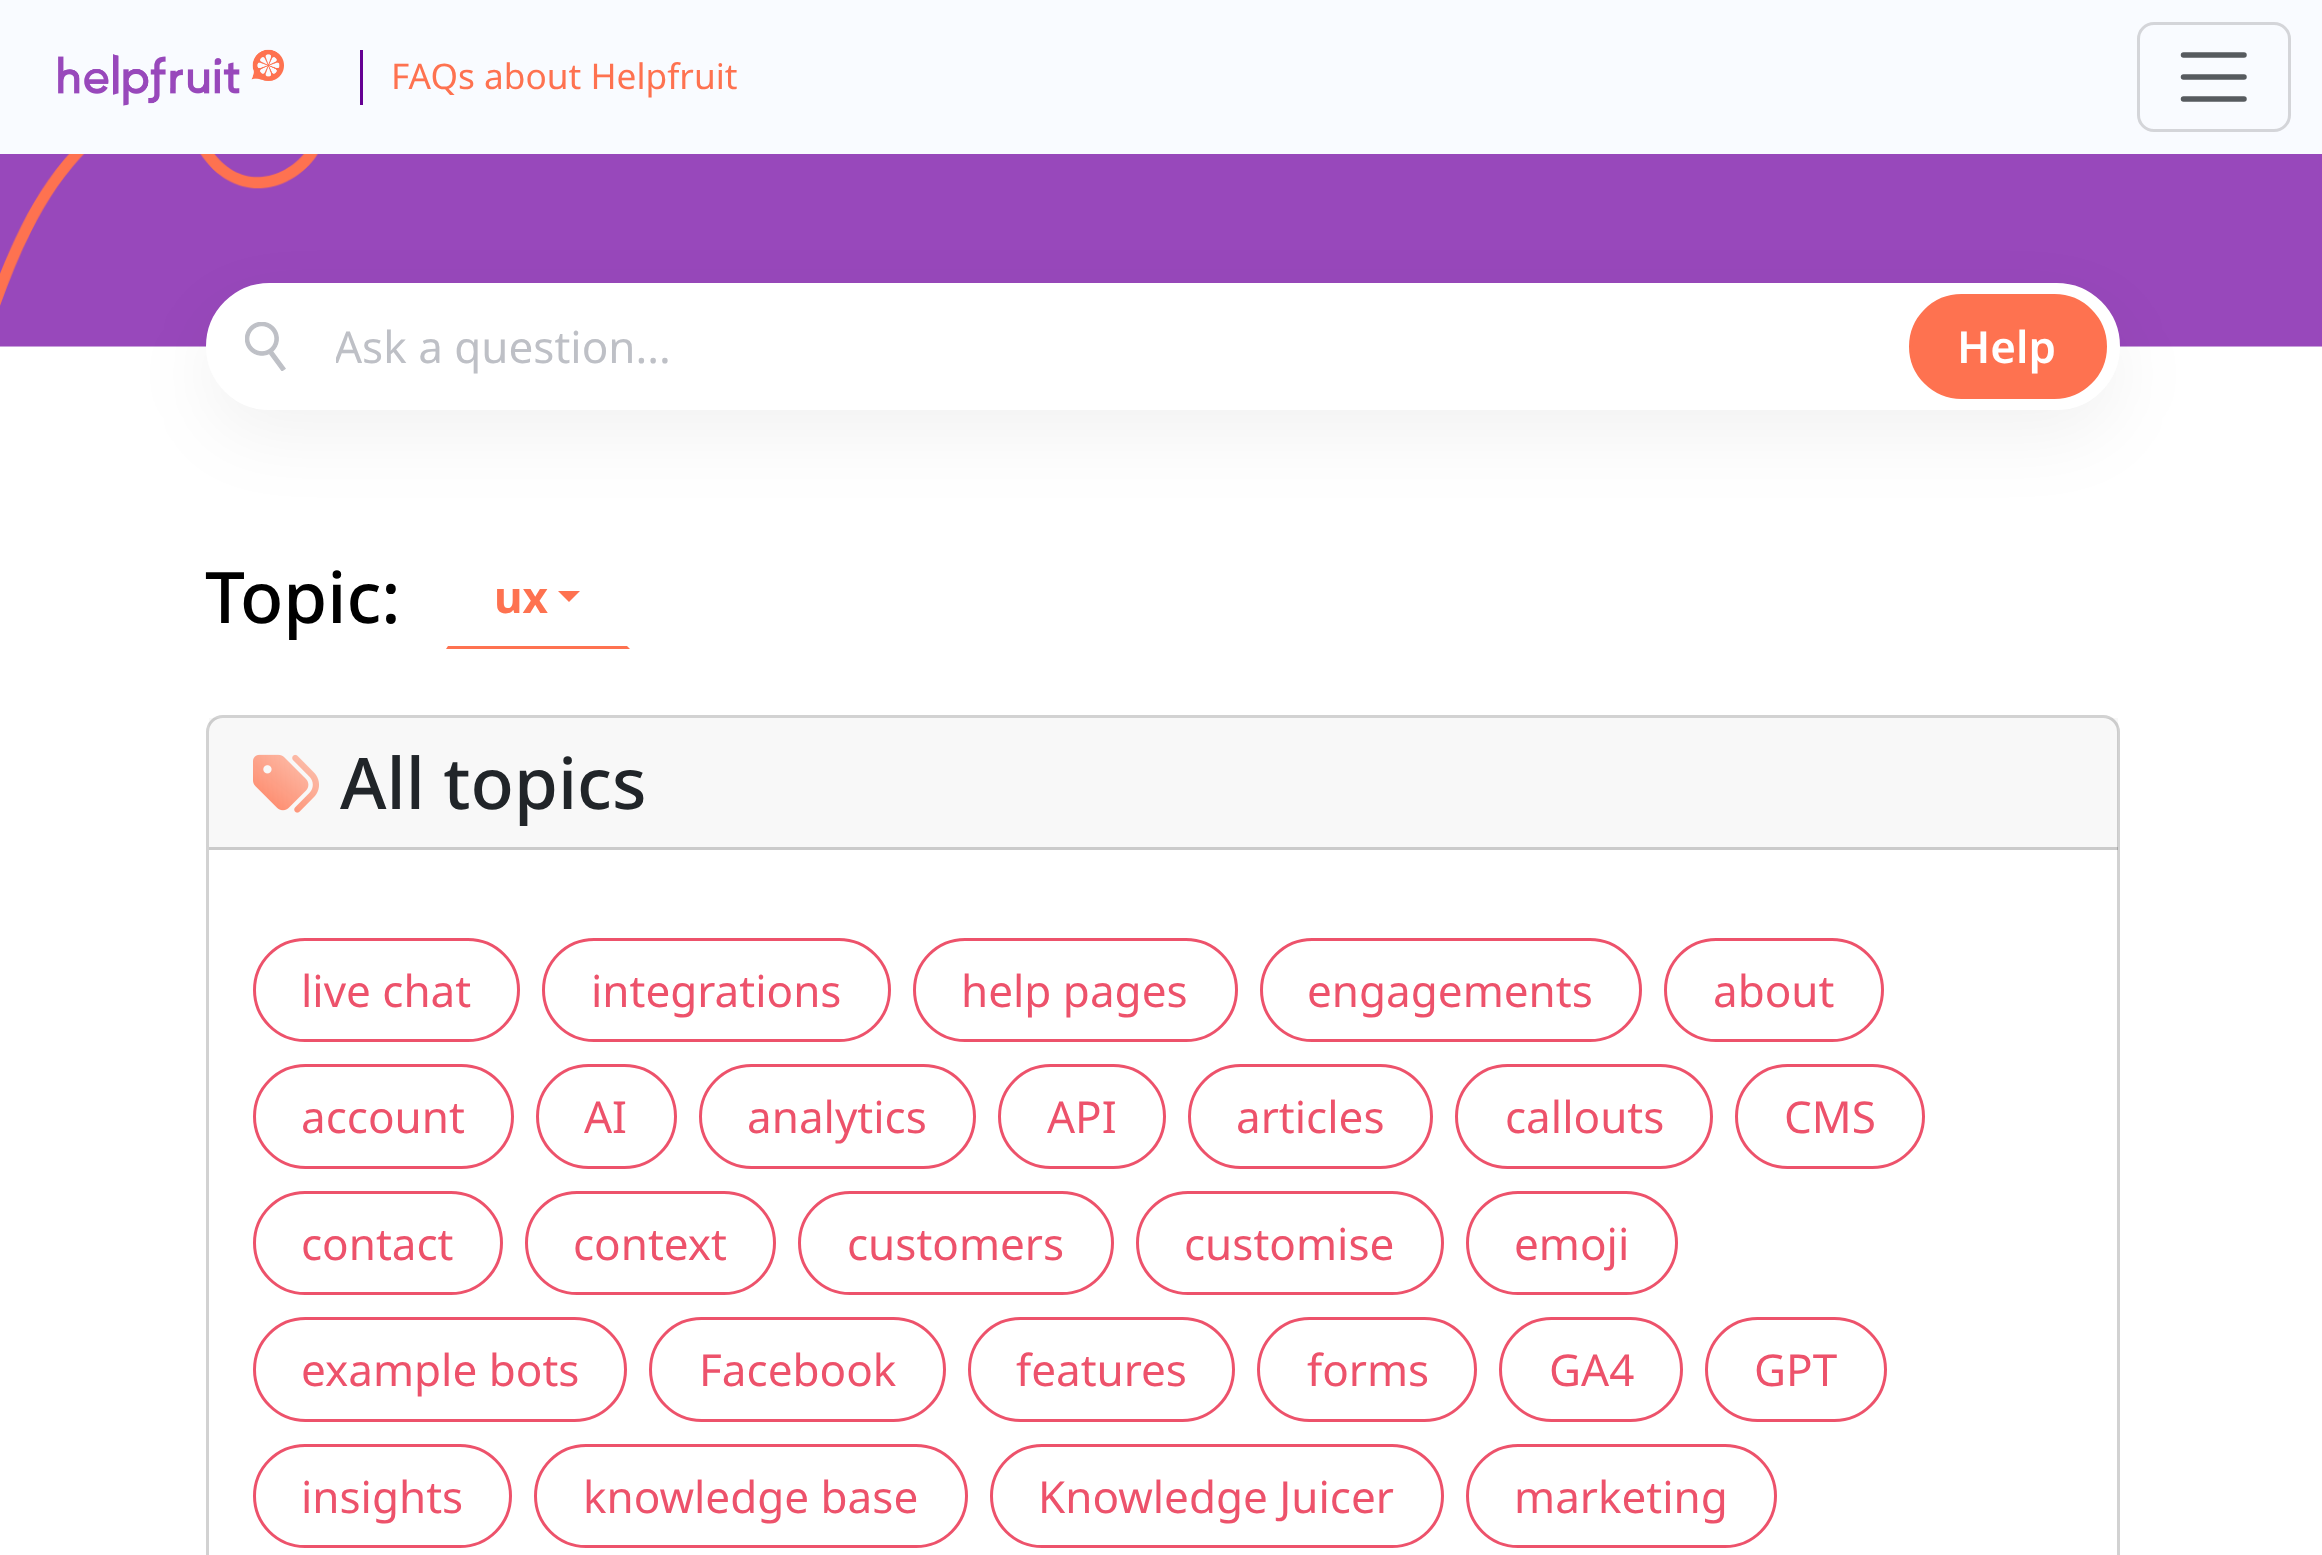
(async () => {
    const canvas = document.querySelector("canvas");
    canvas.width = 2322;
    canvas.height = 1555;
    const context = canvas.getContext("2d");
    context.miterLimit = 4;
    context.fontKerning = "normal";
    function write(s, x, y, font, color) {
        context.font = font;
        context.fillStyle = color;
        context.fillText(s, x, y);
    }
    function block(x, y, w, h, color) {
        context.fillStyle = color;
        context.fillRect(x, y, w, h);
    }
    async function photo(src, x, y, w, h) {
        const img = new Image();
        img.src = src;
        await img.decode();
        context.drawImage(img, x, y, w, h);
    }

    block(0, 0, 2322, 1555, "rgb(248, 249, 250)");
    block(0, 0, 2322, 154, "rgb(249, 251, 255)");
    await photo("media/1.png", 58, 49, 226, 57);
    block(360, 50, 3, 55, "rgb(102, 0, 147)");
    write("FAQs about Helpfruit", 391, 89, "35.25px Noto Sans", "rgb(254, 114, 80)");
    context.beginPath();
    context.roundRect(2138.5, 23.5, 151, 107, 15.5);
    context.strokeStyle = "rgb(212, 213, 217)";
    context.lineWidth = 3;
    context.stroke();
    context.beginPath();
    context.moveTo(2183.5, 55);
    context.lineTo(2244, 55);
    context.moveTo(2183.5, 77);
    context.lineTo(2244, 77);
    context.moveTo(2183.5, 99);
    context.lineTo(2244, 99);
    context.strokeStyle = "rgb(87, 91, 95)";
    context.lineWidth = 5.5;
    context.lineCap = "round";
    context.stroke();
    await photo("media/2.png", 0, 154, 2322, 193);
    block(0, 347, 2322, 1208, "rgb(255, 255, 255)");
    context.fillStyle = "rgba(0, 0, 0, 0.05)";
    context.filter = "blur(36px)";
    context.beginPath();
    context.roundRect(206, 311, 1914, 126, 63);
    context.fill();
    context.filter = "none";
    context.fillStyle = "rgb(255, 255, 255)";
    context.beginPath();
    context.roundRect(209, 286, 1908, 121, 60.5);
    context.fill();
    context.strokeStyle = "rgb(255, 255, 255)";
    context.lineWidth = 6;
    context.stroke();
    await photo("media/3.png", 245, 322, 41, 49);
    context.save();
    context.beginPath();
    context.rect(336, 316, 1504, 61);
    context.clip();
    write("Ask a question...", 334, 363, "44px Noto Sans", "rgb(190, 192, 198)");
    context.restore();
    context.fillStyle = "rgb(254, 114, 80)";
    context.beginPath();
    context.roundRect(1910.5, 295.5, 195, 102, 51);
    context.fill();
    context.strokeStyle = "rgb(254, 114, 80)";
    context.lineWidth = 3;
    context.stroke();
    write("Help", 1957, 363, "600 44px Noto Sans", "rgb(255, 255, 255)");
    write("Topic:", 205, 623, "500 71px Noto Sans", "rgb(0, 0, 0)");
    context.fillStyle = "rgb(254, 114, 80)";
    context.beginPath();
    context.moveTo(630, 649);
    context.lineTo(446, 649);
    context.lineTo(448, 646);
    context.lineTo(627, 646);
    context.closePath();
    context.fill();
    write("ux", 494, 613, "bold 44px Noto Sans", "rgb(254, 114, 80)");
    context.beginPath();
    context.moveTo(558, 591);
    context.lineTo(580, 591);
    context.lineTo(569, 602);
    context.closePath();
    context.fill();
    context.beginPath();
    context.roundRect(207.5, 716.5, 1911, 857, 15.5);
    context.strokeStyle = "rgb(210, 210, 210)";
    context.stroke();
    block(209, 718, 1909, 132, "rgba(33, 37, 41, 0.03)");
    block(209, 847, 1909, 3, "rgba(0, 0, 0, 0.18)");
    await photo("media/4.png", 253, 754, 66, 59);
    write("All topics", 340, 809, "500 71px Noto Sans", "rgb(33, 37, 41)");
    context.beginPath();
    context.roundRect(254.5, 939.5, 264, 101, 50.5);
    context.strokeStyle = "rgb(237, 82, 107)";
    context.stroke();
    write("live chat", 301, 1007, "44px Noto Sans", "rgb(237, 82, 107)");
    context.beginPath();
    context.roundRect(543.5, 939.5, 346, 101, 50.5);
    context.stroke();
    write("integrations", 591, 1007, "44px Noto Sans", "rgb(237, 82, 107)");
    context.beginPath();
    context.roundRect(914.5, 939.5, 322, 101, 50.5);
    context.stroke();
    write("help pages", 961, 1007, "44px Noto Sans", "rgb(237, 82, 107)");
    context.beginPath();
    context.roundRect(1261.5, 939.5, 379, 101, 50.5);
    context.stroke();
    write("engagements", 1307, 1007, "44px Noto Sans", "rgb(237, 82, 107)");
    context.beginPath();
    context.roundRect(1665.5, 939.5, 217, 101, 50.5);
    context.stroke();
    write("about", 1713, 1007, "44px Noto Sans", "rgb(237, 82, 107)");
    context.beginPath();
    context.roundRect(254.5, 1065.5, 258, 102, 51);
    context.stroke();
    write("account", 301, 1133, "44px Noto Sans", "rgb(237, 82, 107)");
    context.beginPath();
    context.roundRect(537.5, 1065.5, 138, 102, 51);
    context.stroke();
    write("AI", 584, 1133, "44px Noto Sans", "rgb(237, 82, 107)");
    context.beginPath();
    context.roundRect(700.5, 1065.5, 274, 102, 51);
    context.stroke();
    write("analytics", 747, 1133, "44px Noto Sans", "rgb(237, 82, 107)");
    context.beginPath();
    context.roundRect(999.5, 1065.5, 165, 102, 51);
    context.stroke();
    write("API", 1047, 1133, "44px Noto Sans", "rgb(237, 82, 107)");
    context.beginPath();
    context.roundRect(1189.5, 1065.5, 242, 102, 51);
    context.stroke();
    write("articles", 1236, 1133, "44px Noto Sans", "rgb(237, 82, 107)");
    context.beginPath();
    context.roundRect(1456.5, 1065.5, 255, 102, 51);
    context.stroke();
    write("callouts", 1505, 1133, "44px Noto Sans", "rgb(237, 82, 107)");
    context.beginPath();
    context.roundRect(1736.5, 1065.5, 187, 102, 51);
    context.stroke();
    write("CMS", 1784, 1133, "44px Noto Sans", "rgb(237, 82, 107)");
    context.beginPath();
    context.roundRect(254.5, 1192.5, 247, 101, 50.5);
    context.stroke();
    write("contact", 301, 1260, "44px Noto Sans", "rgb(237, 82, 107)");
    context.beginPath();
    context.roundRect(526.5, 1192.5, 248, 101, 50.5);
    context.stroke();
    write("context", 573, 1260, "44px Noto Sans", "rgb(237, 82, 107)");
    context.beginPath();
    context.roundRect(799.5, 1192.5, 313, 101, 50.5);
    context.stroke();
    write("customers", 847, 1260, "44px Noto Sans", "rgb(237, 82, 107)");
    context.beginPath();
    context.roundRect(1137.5, 1192.5, 305, 101, 50.5);
    context.stroke();
    write("customise", 1184, 1260, "44px Noto Sans", "rgb(237, 82, 107)");
    context.beginPath();
    context.roundRect(1467.5, 1192.5, 209, 101, 50.5);
    context.stroke();
    write("emoji", 1514, 1260, "44px Noto Sans", "rgb(237, 82, 107)");
    context.beginPath();
    context.roundRect(254.5, 1318.5, 371, 102, 51);
    context.stroke();
    write("example bots", 301, 1386, "44px Noto Sans", "rgb(237, 82, 107)");
    context.beginPath();
    context.roundRect(650.5, 1318.5, 294, 102, 51);
    context.stroke();
    write("Facebook", 699, 1386, "44px Noto Sans", "rgb(237, 82, 107)");
    context.beginPath();
    context.roundRect(969.5, 1318.5, 264, 102, 51);
    context.stroke();
    write("features", 1016, 1386, "44px Noto Sans", "rgb(237, 82, 107)");
    context.beginPath();
    context.roundRect(1258.5, 1318.5, 217, 102, 51);
    context.stroke();
    write("forms", 1307, 1386, "44px Noto Sans", "rgb(237, 82, 107)");
    context.beginPath();
    context.roundRect(1500.5, 1318.5, 181, 102, 51);
    context.stroke();
    write("GA4", 1549, 1386, "44px Noto Sans", "rgb(237, 82, 107)");
    context.beginPath();
    context.roundRect(1706.5, 1318.5, 179, 102, 51);
    context.stroke();
    write("GPT", 1754, 1386, "44px Noto Sans", "rgb(237, 82, 107)");
    context.beginPath();
    context.roundRect(254.5, 1445.5, 256, 101, 50.5);
    context.stroke();
    write("insights", 301, 1513, "44px Noto Sans", "rgb(237, 82, 107)");
    context.beginPath();
    context.roundRect(535.5, 1445.5, 431, 101, 50.5);
    context.stroke();
    write("knowledge base", 583, 1513, "44px Noto Sans", "rgb(237, 82, 107)");
    context.beginPath();
    context.roundRect(991.5, 1445.5, 451, 101, 50.5);
    context.stroke();
    write("Knowledge Juicer", 1038, 1513, "44px Noto Sans", "rgb(237, 82, 107)");
    context.beginPath();
    context.roundRect(1467.5, 1445.5, 308, 101, 50.5);
    context.stroke();
    write("marketing", 1514, 1513, "44px Noto Sans", "rgb(237, 82, 107)");
})();
